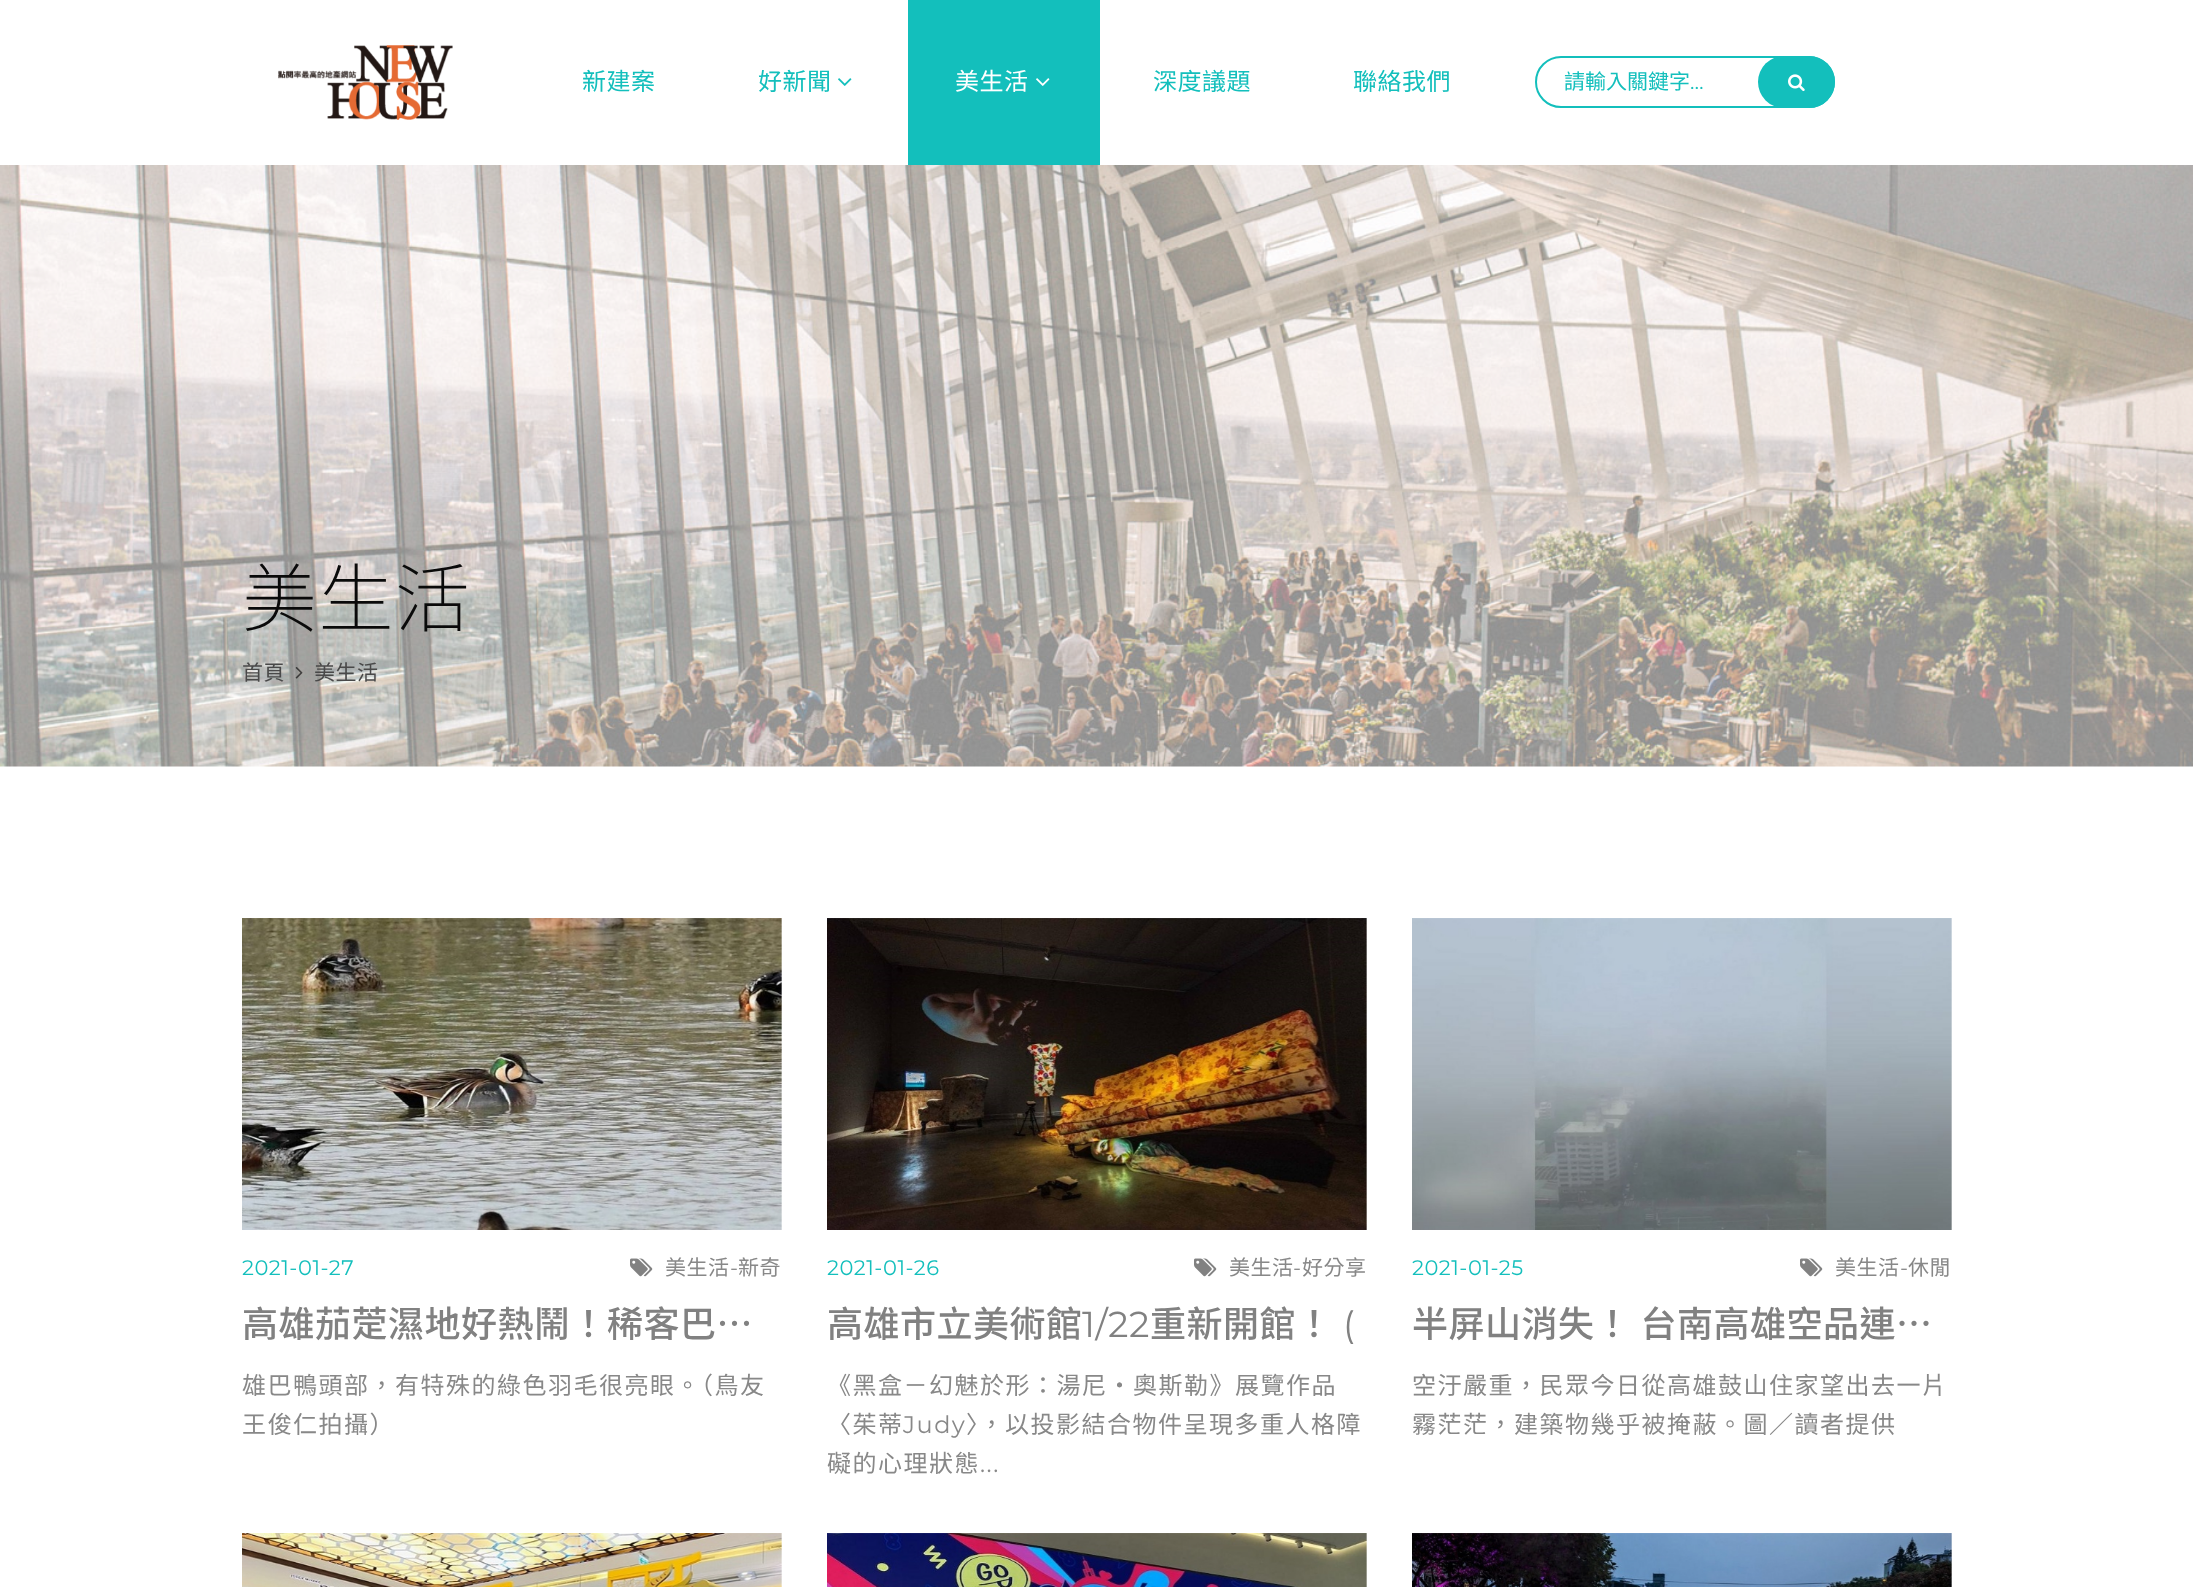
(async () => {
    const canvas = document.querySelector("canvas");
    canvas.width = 2193;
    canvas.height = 1587;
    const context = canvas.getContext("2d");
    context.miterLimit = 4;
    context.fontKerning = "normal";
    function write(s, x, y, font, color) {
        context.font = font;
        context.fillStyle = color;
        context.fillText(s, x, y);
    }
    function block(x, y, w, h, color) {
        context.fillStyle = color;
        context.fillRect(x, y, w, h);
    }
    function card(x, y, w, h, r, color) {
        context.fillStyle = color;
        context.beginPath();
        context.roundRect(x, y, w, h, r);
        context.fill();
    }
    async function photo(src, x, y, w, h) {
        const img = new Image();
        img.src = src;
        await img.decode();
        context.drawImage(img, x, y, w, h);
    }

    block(0, 0, 2193, 1587, "rgb(255, 255, 255)");
    await photo("media/1.png", 278, 45, 175, 75);
    context.letterSpacing = "0.5px";
    write("新建案", 582, 90, "24px Noto Sans TC", "rgb(19, 191, 188)");
    write("好新聞", 758, 90, "24px Noto Sans TC", "rgb(19, 191, 188)");
    await photo("media/2.png", 838, 78, 14, 8);
    block(908, 0, 192, 165, "rgb(19, 191, 188)");
    write("美生活", 955, 90, "24px Noto Sans TC", "rgb(255, 255, 255)");
    await photo("media/3.png", 1036, 78, 14, 8);
    write("深度議題", 1153, 90, "24px Noto Sans TC", "rgb(19, 191, 188)");
    write("聯絡我們", 1353, 90, "24px Noto Sans TC", "rgb(19, 191, 188)");
    context.beginPath();
    context.roundRect(1536, 57, 298, 50, 25);
    context.strokeStyle = "rgb(19, 191, 188)";
    context.lineWidth = 2;
    context.stroke();
    context.letterSpacing = "0px";
    write("請輸入關鍵字", 1564, 89, "21px Noto Sans TC", "rgb(19, 191, 188)");
    write("…", 1690, 89, "21px Montserrat", "rgb(19, 191, 188)");
    card(1758, 56, 77, 52, 26, "rgb(19, 191, 188)");
    await photo("media/4.png", 1788, 74, 17, 18);
    await photo("media/5.png", 0, 165, 2193, 602);
    context.letterSpacing = "1.5px";
    write("美生活", 242, 626, "200 75px Noto Sans TC", "rgb(10, 10, 10)");
    context.letterSpacing = "0.5px";
    write("首頁", 242, 680, "21px Noto Sans TC", "rgb(73, 73, 73)");
    await photo("media/6.png", 295, 667, 8, 12);
    write("美生活", 314, 680, "21px Noto Sans TC", "rgb(73, 73, 73)");
    await photo("media/7.png", 242, 918, 540, 312);
    write("2021-01-27", 242, 1275, "21px Montserrat", "rgb(19, 191, 188)");
    await photo("media/8.png", 630, 1258, 23, 19);
    write("美生活", 665, 1275, "21px Noto Sans TC", "rgb(136, 136, 136)");
    write("-", 730, 1275, "21px Montserrat", "rgb(136, 136, 136)");
    write("新奇", 738, 1275, "21px Noto Sans TC", "rgb(136, 136, 136)");
    write("高雄茄萣濕地好熱鬧！稀客巴…", 242, 1337, "500 36px Noto Sans TC", "rgb(129, 129, 129)");
    context.letterSpacing = "1.5px";
    write("雄巴鴨頭部，有特殊的綠色羽毛很亮眼。（鳥友", 242, 1394, "24px Noto Sans TC", "rgb(136, 136, 136)");
    write("王俊仁拍攝）", 242, 1433, "24px Noto Sans TC", "rgb(136, 136, 136)");
    await photo("media/9.png", 827, 918, 540, 312);
    context.letterSpacing = "0.5px";
    write("2021-01-26", 827, 1275, "21px Montserrat", "rgb(19, 191, 188)");
    await photo("media/8.png", 1194, 1258, 23, 19);
    write("美生活", 1229, 1275, "21px Noto Sans TC", "rgb(136, 136, 136)");
    write("-", 1293, 1275, "21px Montserrat", "rgb(136, 136, 136)");
    write("好分享", 1302, 1275, "21px Noto Sans TC", "rgb(136, 136, 136)");
    write("高雄市立美術館", 827, 1337, "500 36px Noto Sans TC", "rgb(129, 129, 129)");
    write("1/22", 1082, 1337, "36px Montserrat", "rgb(129, 129, 129)");
    write("重新開館！", 1150, 1337, "500 36px Noto Sans TC", "rgb(129, 129, 129)");
    write("(", 1343, 1337, "36px Montserrat", "rgb(129, 129, 129)");
    context.letterSpacing = "1.5px";
    write("《黑盒－幻魅於形：湯尼・奧斯勒》展覽作品", 827, 1394, "24px Noto Sans TC", "rgb(136, 136, 136)");
    write("〈茱蒂", 827, 1433, "24px Noto Sans TC", "rgb(136, 136, 136)");
    write("Judy", 903, 1433, "24px Montserrat", "rgb(136, 136, 136)");
    write("〉，以投影結合物件呈現多重人格障", 966, 1433, "24px Noto Sans TC", "rgb(136, 136, 136)");
    write("礙的心理狀態", 827, 1472, "24px Noto Sans TC", "rgb(136, 136, 136)");
    write("...", 980, 1472, "24px Montserrat", "rgb(136, 136, 136)");
    await photo("media/10.png", 1412, 918, 540, 312);
    context.letterSpacing = "0.5px";
    write("2021-01-25", 1412, 1275, "21px Montserrat", "rgb(19, 191, 188)");
    await photo("media/8.png", 1800, 1258, 23, 19);
    write("美生活", 1835, 1275, "21px Noto Sans TC", "rgb(136, 136, 136)");
    write("-", 1900, 1275, "21px Montserrat", "rgb(136, 136, 136)");
    write("休閒", 1908, 1275, "21px Noto Sans TC", "rgb(136, 136, 136)");
    context.wordSpacing = "1px";
    write("半屏山消失！ 台南高雄空品連…", 1412, 1337, "500 36px Noto Sans TC", "rgb(129, 129, 129)");
    context.letterSpacing = "1.5px";
    context.wordSpacing = "0px";
    write("空汙嚴重，民眾今日從高雄鼓山住家望出去一片", 1412, 1394, "24px Noto Sans TC", "rgb(136, 136, 136)");
    write("霧茫茫，建築物幾乎被掩蔽。圖／讀者提供", 1412, 1433, "24px Noto Sans TC", "rgb(136, 136, 136)");
    await photo("media/11.png", 242, 1533, 540, 54);
    await photo("media/12.png", 827, 1533, 540, 54);
    await photo("media/13.png", 1412, 1533, 540, 54);
})();
